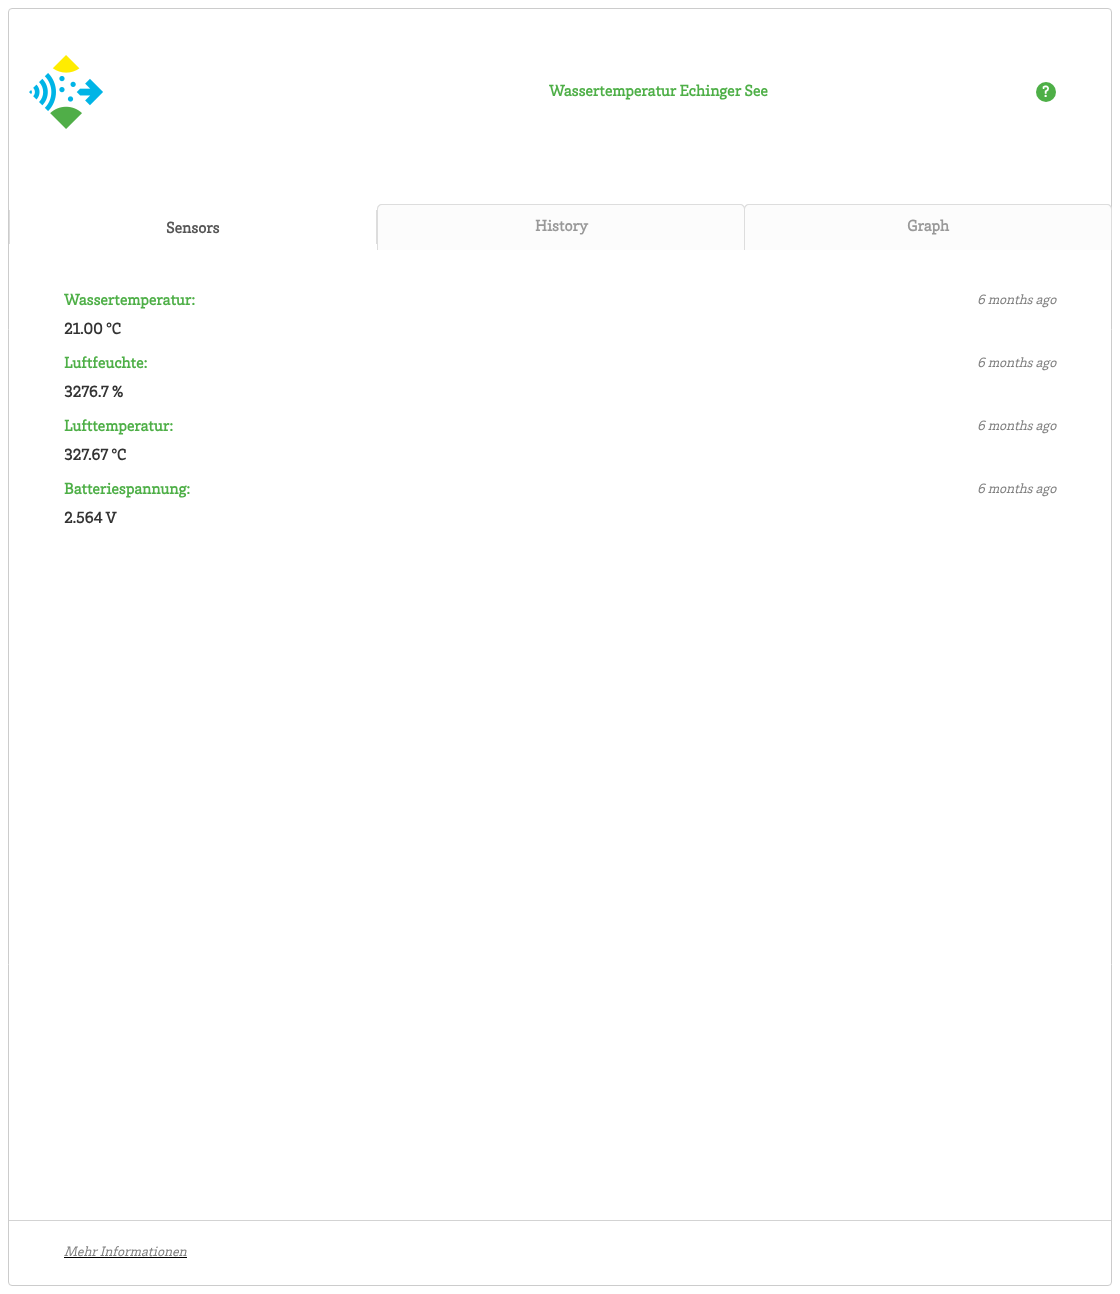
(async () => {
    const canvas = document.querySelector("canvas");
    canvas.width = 1120;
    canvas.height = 1294;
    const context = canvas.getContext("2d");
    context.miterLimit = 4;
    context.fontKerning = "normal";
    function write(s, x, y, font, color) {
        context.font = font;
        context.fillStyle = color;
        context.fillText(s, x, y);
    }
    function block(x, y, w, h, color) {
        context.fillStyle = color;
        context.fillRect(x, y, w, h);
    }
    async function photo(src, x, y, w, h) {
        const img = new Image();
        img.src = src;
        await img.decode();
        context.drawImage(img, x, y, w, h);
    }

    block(0, 0, 1120, 1294, "rgb(255, 255, 255)");
    context.beginPath();
    context.roundRect(8.5, 8.5, 1103, 1277, 3.5);
    context.strokeStyle = "rgb(204, 204, 204)";
    context.stroke();
    await photo("media/1.png", 29, 55, 74, 74);
    write("Wassertemperatur Echinger See", 549, 96, "bold 16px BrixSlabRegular", "rgb(78, 175, 71)");
    context.beginPath();
    context.arc(1046, 92, 10, 0, Math.PI * 2);
    context.fill();
    write("?", 1042, 97, "bold 16px BrixSlabRegular", "rgb(255, 255, 255)");
    block(376, 210, 1, 34, "rgb(221, 221, 221)");
    block(9, 210, 1, 34, "rgb(221, 221, 221)");
    write("Sensors", 166, 233, "bold 16px BrixSlabRegular", "rgb(85, 85, 85)");
    context.fillStyle = "rgb(252, 252, 252)";
    context.beginPath();
    context.roundRect(378, 205, 366, 45, [4, 4, 0, 0]);
    context.fill();
    context.fillStyle = "rgb(221, 221, 221)";
    context.beginPath();
    context.moveTo(382, 204);
    context.lineTo(740, 204);
    context.bezierCurveTo(743, 204, 745, 206, 745, 209);
    context.lineTo(745, 250);
    context.lineTo(377, 250);
    context.lineTo(377, 209);
    context.bezierCurveTo(377, 206, 379, 204, 382, 204);
    context.closePath();
    context.moveTo(382, 205);
    context.lineTo(740, 205);
    context.bezierCurveTo(742, 205, 744, 207, 744, 209);
    context.lineTo(744, 250);
    context.lineTo(378, 250);
    context.lineTo(378, 209);
    context.bezierCurveTo(378, 207, 380, 205, 382, 205);
    context.closePath();
    context.fill("evenodd");
    write("History", 535, 231, "bold 16px BrixSlabRegular", "rgb(153, 153, 153)");
    context.fillStyle = "rgb(252, 252, 252)";
    context.beginPath();
    context.roundRect(745, 205, 366, 45, [4, 4, 0, 0]);
    context.fill();
    context.fillStyle = "rgb(221, 221, 221)";
    context.beginPath();
    context.moveTo(749, 204);
    context.lineTo(1107, 204);
    context.bezierCurveTo(1110, 204, 1112, 206, 1112, 209);
    context.lineTo(1112, 250);
    context.lineTo(744, 250);
    context.lineTo(744, 209);
    context.bezierCurveTo(744, 206, 746, 204, 749, 204);
    context.closePath();
    context.moveTo(749, 205);
    context.lineTo(1107, 205);
    context.bezierCurveTo(1109, 205, 1111, 207, 1111, 209);
    context.lineTo(1111, 250);
    context.lineTo(745, 250);
    context.lineTo(745, 209);
    context.bezierCurveTo(745, 207, 747, 205, 749, 205);
    context.closePath();
    context.fill("evenodd");
    write("Graph", 907, 231, "bold 16px BrixSlabRegular", "rgb(153, 153, 153)");
    write("Wassertemperatur:", 64, 305, "bold 16px BrixSlabRegular", "rgb(78, 175, 71)");
    write("6 months ago", 977, 304, "italic 14px BrixSlabRegular", "rgb(128, 128, 128)");
    write("21.00 °C", 64, 334, "bold 16px BrixSlabRegular", "rgb(51, 51, 51)");
    write("Luftfeuchte:", 64, 368, "bold 16px BrixSlabRegular", "rgb(78, 175, 71)");
    write("6 months ago", 977, 367, "italic 14px BrixSlabRegular", "rgb(128, 128, 128)");
    write("3276.7 %", 64, 397, "bold 16px BrixSlabRegular", "rgb(51, 51, 51)");
    write("Lufttemperatur:", 64, 431, "bold 16px BrixSlabRegular", "rgb(78, 175, 71)");
    write("6 months ago", 977, 430, "italic 14px BrixSlabRegular", "rgb(128, 128, 128)");
    write("327.67 °C", 64, 460, "bold 16px BrixSlabRegular", "rgb(51, 51, 51)");
    write("Batteriespannung:", 64, 494, "bold 16px BrixSlabRegular", "rgb(78, 175, 71)");
    write("6 months ago", 977, 493, "italic 14px BrixSlabRegular", "rgb(128, 128, 128)");
    write("2.564 V", 64, 523, "bold 16px BrixSlabRegular", "rgb(51, 51, 51)");
    block(9, 1220, 1102, 1, "rgb(211, 211, 211)");
    write("Mehr Informationen", 64, 1256, "italic 14px BrixSlabRegular", "rgb(128, 128, 128)");
    block(64, 1257, 123, 1, "rgb(0, 0, 0)");
})();
